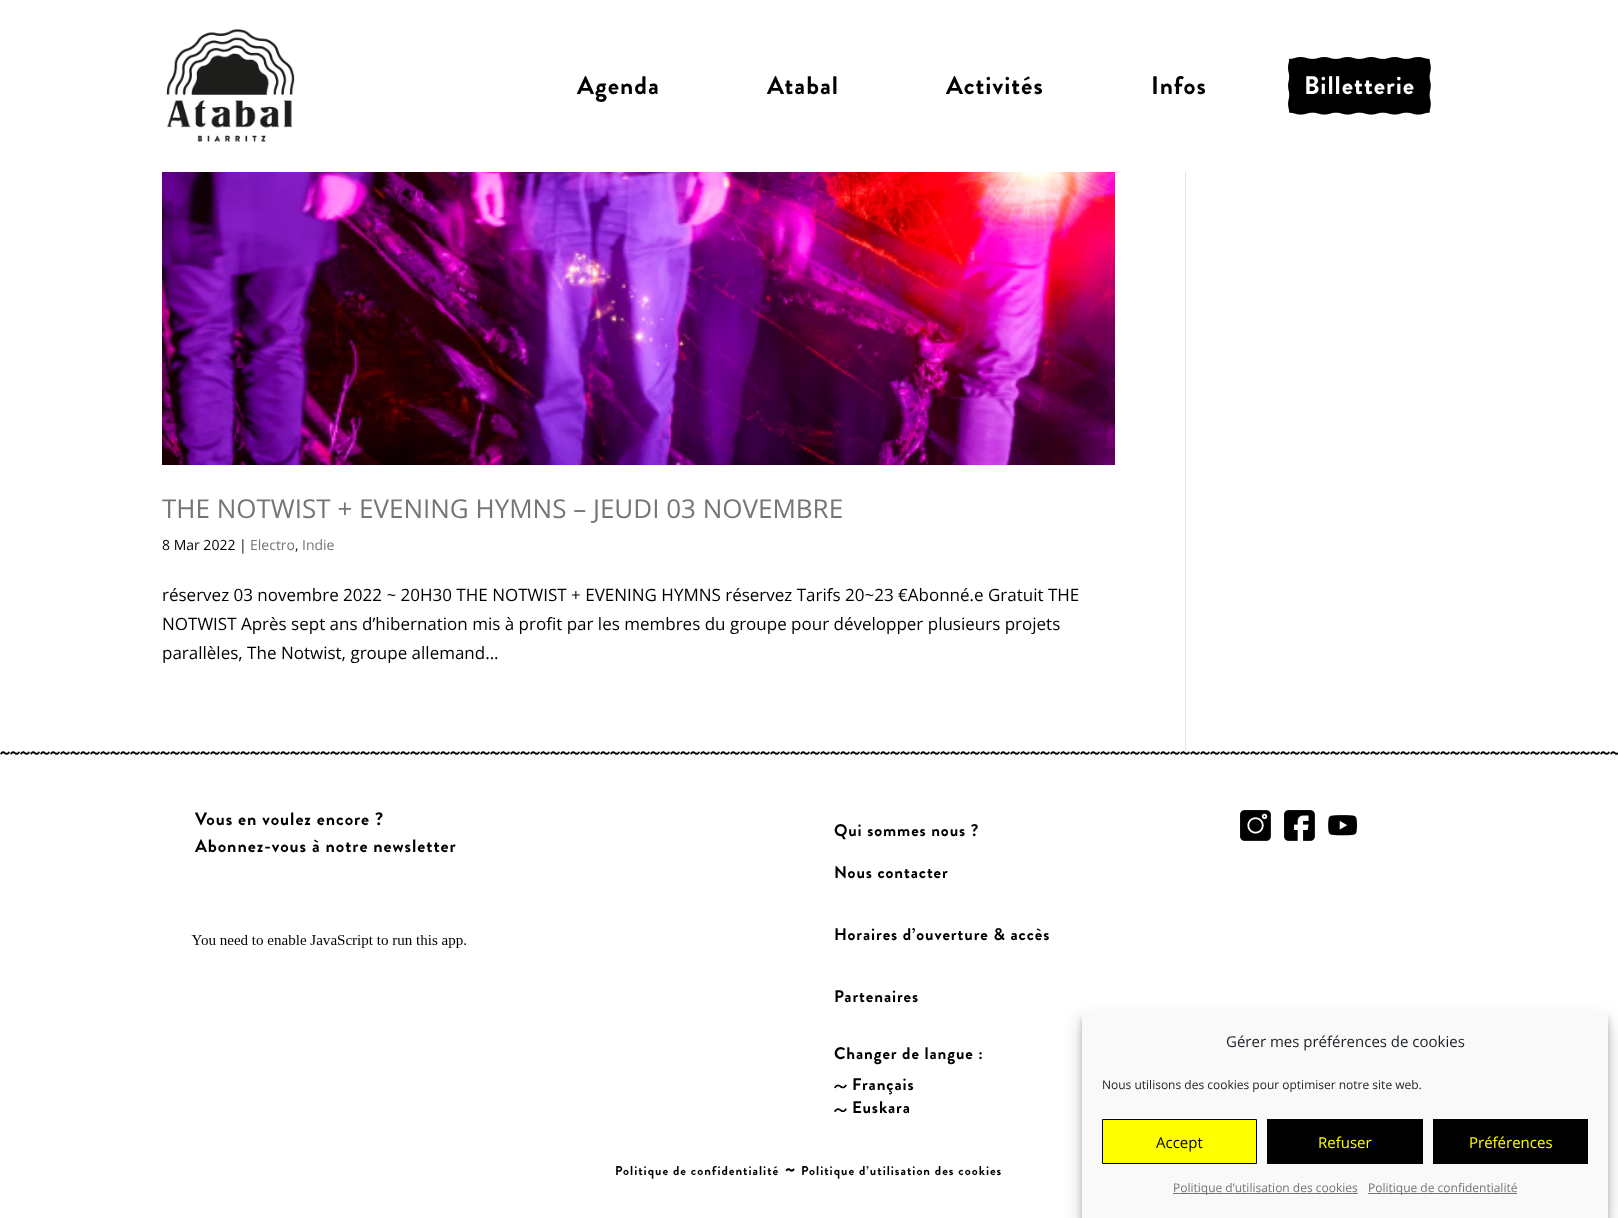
(async () => {
    const canvas = document.querySelector("canvas");
    canvas.width = 1618;
    canvas.height = 1218;
    const context = canvas.getContext("2d");
    context.miterLimit = 4;
    context.fontKerning = "normal";
    function write(s, x, y, font, color) {
        context.font = font;
        context.fillStyle = color;
        context.fillText(s, x, y);
    }
    function block(x, y, w, h, color) {
        context.fillStyle = color;
        context.fillRect(x, y, w, h);
    }
    async function photo(src, x, y, w, h) {
        const img = new Image();
        img.src = src;
        await img.decode();
        context.drawImage(img, x, y, w, h);
    }

    block(0, 0, 1618, 1218, "rgb(255, 255, 255)");
    await photo("media/1.png", 166, 29, 129, 113);
    context.letterSpacing = "1px";
    write("Agenda", 577, 94, "bold 25.5px Brandon Grotesque", "rgb(0, 0, 0)");
    write("Atabal", 767, 94, "bold 25.5px Brandon Grotesque", "rgb(0, 0, 0)");
    write("Activités", 946, 94, "bold 25.5px Brandon Grotesque", "rgb(0, 0, 0)");
    write("Infos", 1151, 94, "bold 25.5px Brandon Grotesque", "rgb(0, 0, 0)");
    await photo("media/2.png", 1288, 57, 143, 58);
    write("Billetterie", 1304, 94, "bold 25.5px Brandon Grotesque", "rgb(255, 255, 255)");
    await photo("media/3.png", 162, 172, 953, 293);
    context.letterSpacing = "0px";
    write("THE NOTWIST + EVENING HYMNS – JEUDI 03 NOVEMBRE", 162, 518, "26px Open Sans", "rgb(117, 117, 117)");
    write("8 Mar 2022 |", 162, 550, "14px Open Sans", "rgb(0, 0, 0)");
    write("Electro", 250, 550, "14px Open Sans", "rgb(117, 117, 117)");
    write(",", 295, 550, "14px Open Sans", "rgb(0, 0, 0)");
    write("Indie", 302, 550, "14px Open Sans", "rgb(117, 117, 117)");
    write("réservez 03 novembre 2022 ~ 20H30 THE NOTWIST + EVENING HYMNS réservez Tarifs 20~23 €Abonné.e Gratuit THE", 162, 601, "17px Open Sans", "rgb(0, 0, 0)");
    write("NOTWIST Après sept ans d’hibernation mis à profit par les membres du groupe pour développer plusieurs projets", 162, 630, "17px Open Sans", "rgb(0, 0, 0)");
    write("parallèles, The Notwist, groupe allemand...", 162, 659, "17px Open Sans", "rgb(0, 0, 0)");
    block(1185, 172, 1, 579, "rgb(226, 226, 226)");
    await photo("media/4.png", 0, 751, 1618, 4);
    context.letterSpacing = "0.95px";
    write("Vous en voulez encore ?", 195, 825, "bold 18px Brandon Grotesque", "rgb(0, 0, 0)");
    write("Abonnez-vous à notre newsletter", 195, 852, "bold 18px Brandon Grotesque", "rgb(0, 0, 0)");
    await photo("media/5.png", 191, 935, 275, 13);
    context.letterSpacing = "0.9px";
    write("Qui sommes nous ?", 834, 836, "bold 16.9px Brandon Grotesque", "rgb(0, 0, 0)");
    write("Nous contacter", 834, 878, "bold 16.9px Brandon Grotesque", "rgb(0, 0, 0)");
    write("Horaires d’ouverture & accès", 834, 940, "bold 16.9px Brandon Grotesque", "rgb(0, 0, 0)");
    write("Partenaires", 834, 1002, "bold 16.9px Brandon Grotesque", "rgb(0, 0, 0)");
    write("Changer de langue :", 834, 1059, "bold 16.9px Brandon Grotesque", "rgb(0, 0, 0)");
    await photo("media/6.png", 834, 1084, 13, 5);
    write("Français", 852, 1090, "bold 16.9px Brandon Grotesque", "rgb(0, 0, 0)");
    await photo("media/7.png", 834, 1108, 13, 4);
    write("Euskara", 852, 1113, "bold 16.9px Brandon Grotesque", "rgb(0, 0, 0)");
    await photo("media/8.png", 1240, 810, 31, 31);
    await photo("media/9.png", 1284, 810, 31, 31);
    await photo("media/10.png", 1328, 815, 29, 21);
    context.letterSpacing = "1px";
    write("Politique de confidentialité", 615, 1175, "bold 12.75px Brandon Grotesque", "rgb(0, 0, 0)");
    write("~", 785, 1175, "bold 19px Brandon Grotesque", "rgb(0, 0, 0)");
    write("Politique d’utilisation des cookies", 801, 1175, "bold 12.75px Brandon Grotesque", "rgb(0, 0, 0)");
    context.fillStyle = "rgba(0, 0, 0, 0.23)";
    context.filter = "blur(3px)";
    context.beginPath();
    context.rect(1082, 1018, 526, 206);
    context.fill();
    context.filter = "none";
    context.fillStyle = "rgba(0, 0, 0, 0.19)";
    context.filter = "blur(10px)";
    context.beginPath();
    context.rect(1082, 1022, 526, 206);
    context.fill();
    context.filter = "none";
    block(1082, 1012, 526, 206, "rgb(249, 249, 249)");
    context.letterSpacing = "0px";
    write("Gérer mes préférences de cookies", 1226, 1047, "15px Open Sans", "rgb(25, 30, 35)");
    write("Nous utilisons des cookies pour optimiser notre site web.", 1102, 1089, "12px Open Sans", "rgb(25, 30, 35)");
    context.fillStyle = "rgb(255, 255, 0)";
    context.beginPath();
    context.rect(1102.5, 1119.5, 154, 44);
    context.fill();
    context.strokeStyle = "rgb(0, 0, 0)";
    context.stroke();
    write("Accept", 1156, 1148, "15px Open Sans", "rgb(0, 0, 0)");
    block(1267, 1119, 156, 45, "rgb(0, 0, 0)");
    write("Refuser", 1318, 1148, "15px Open Sans", "rgb(255, 255, 0)");
    block(1433, 1119, 155, 45, "rgb(0, 0, 0)");
    write("Préférences", 1469, 1148, "15px Open Sans", "rgb(255, 255, 0)");
    block(1173, 1193, 185, 1, "rgb(117, 117, 117)");
    write("Politique d’utilisation des cookies", 1173, 1192, "12px Open Sans", "rgb(117, 117, 117)");
    block(1368, 1193, 149, 1, "rgb(117, 117, 117)");
    write("Politique de confidentialité", 1368, 1192, "12px Open Sans", "rgb(117, 117, 117)");
})();
